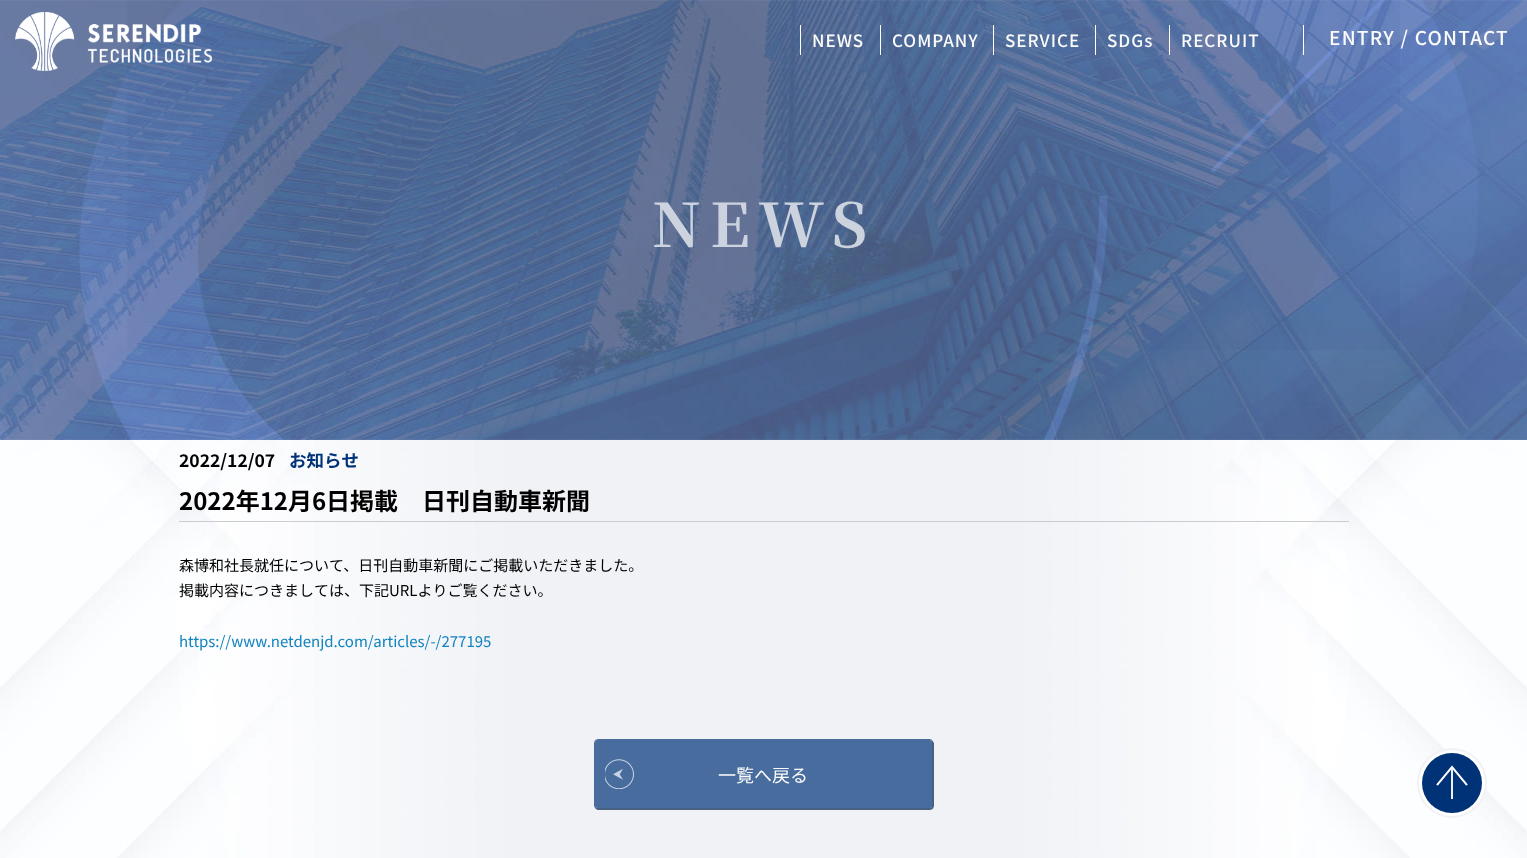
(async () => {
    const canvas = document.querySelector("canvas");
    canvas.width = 1527;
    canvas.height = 858;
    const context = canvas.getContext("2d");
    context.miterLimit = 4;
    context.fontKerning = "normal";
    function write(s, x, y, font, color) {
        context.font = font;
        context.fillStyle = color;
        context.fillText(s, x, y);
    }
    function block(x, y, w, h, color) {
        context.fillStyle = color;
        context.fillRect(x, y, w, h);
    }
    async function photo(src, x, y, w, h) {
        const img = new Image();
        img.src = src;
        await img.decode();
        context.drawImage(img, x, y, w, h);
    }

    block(0, 0, 1527, 858, "rgb(255, 255, 255)");
    await photo("media/1.png", 0, 0, 1527, 858);
    await photo("media/3.png", 0, 0, 1527, 440);
    await photo("media/2.png", 15, 12, 197, 59);
    block(800, 25, 1, 30, "rgb(255, 255, 255)");
    context.letterSpacing = "1px";
    write("NEWS", 812, 47, "500 17px Noto Sans JP", "rgb(251, 251, 252)");
    block(880, 25, 1, 30, "rgb(255, 255, 255)");
    write("COMPANY", 892, 47, "500 17px Noto Sans JP", "rgb(251, 251, 252)");
    block(993, 25, 1, 30, "rgb(255, 255, 255)");
    write("SERVICE", 1005, 47, "500 17px Noto Sans JP", "rgb(251, 251, 252)");
    block(1095, 25, 1, 30, "rgb(255, 255, 255)");
    write("SDGs", 1107, 47, "500 17px Noto Sans JP", "rgb(251, 251, 252)");
    block(1169, 25, 1, 30, "rgb(255, 255, 255)");
    write("RECRUIT", 1181, 47, "500 17px Noto Sans JP", "rgb(251, 251, 252)");
    block(1303, 25, 1, 30, "rgb(255, 255, 255)");
    context.letterSpacing = "1.25px";
    write("ENTRY / CONTACT", 1329, 45, "500 19px Noto Sans JP", "rgb(251, 251, 252)");
    context.letterSpacing = "9px";
    write("NEWS", 652, 247, "bold 60px Noto Serif JP", "rgb(204, 210, 222)");
    context.letterSpacing = "0px";
    write("2022/12/07", 179, 467, "bold 17.5px Noto Sans JP", "rgb(0, 0, 0)");
    write("お知らせ", 289, 467, "bold 17.5px Noto Sans JP", "rgb(0, 50, 120)");
    block(179, 521, 1170, 1, "rgb(204, 204, 204)");
    write("2022年12月6日掲載　日刊自動車新聞", 179, 510, "bold 24px Noto Sans JP", "rgb(0, 0, 0)");
    write("森博和社長就任について、日刊自動車新聞にご掲載いただきました。", 179, 571, "15px Noto Sans JP", "rgb(0, 0, 0)");
    write("掲載内容につきましては、下記URLよりご覧ください。", 179, 596, "15px Noto Sans JP", "rgb(0, 0, 0)");
    write("https://www.netdenjd.com/articles/-/277195", 179, 647, "15px Noto Sans JP", "rgb(17, 131, 192)");
    context.fillStyle = "rgb(72, 108, 158)";
    context.beginPath();
    context.moveTo(598, 740);
    context.lineTo(930, 740);
    context.bezierCurveTo(931, 740, 932, 741, 932, 743);
    context.lineTo(932, 806);
    context.bezierCurveTo(932, 807, 931, 808, 930, 808);
    context.lineTo(598, 808);
    context.bezierCurveTo(596, 808, 595, 807, 595, 806);
    context.lineTo(595, 743);
    context.bezierCurveTo(595, 741, 596, 740, 598, 740);
    context.closePath();
    context.fill();
    context.beginPath();
    context.moveTo(598, 739);
    context.lineTo(595, 740);
    context.lineTo(596, 741);
    context.lineTo(598, 740);
    context.lineTo(930, 740);
    context.lineTo(931, 740);
    context.lineTo(932, 740);
    context.lineTo(930, 739);
    context.closePath();
    context.fill();
    context.fillStyle = "rgb(72, 96, 130)";
    context.beginPath();
    context.moveTo(934, 806);
    context.lineTo(934, 743);
    context.lineTo(932, 740);
    context.lineTo(931, 740);
    context.lineTo(932, 743);
    context.lineTo(932, 806);
    context.lineTo(931, 807);
    context.lineTo(933, 809);
    context.closePath();
    context.fill();
    context.beginPath();
    context.moveTo(598, 810);
    context.lineTo(930, 810);
    context.lineTo(933, 809);
    context.lineTo(931, 807);
    context.lineTo(930, 808);
    context.lineTo(598, 808);
    context.lineTo(595, 807);
    context.lineTo(595, 808);
    context.bezierCurveTo(596, 809, 597, 810, 598, 810);
    context.closePath();
    context.fill();
    context.fillStyle = "rgb(72, 108, 158)";
    context.beginPath();
    context.moveTo(594, 743);
    context.lineTo(594, 806);
    context.lineTo(595, 808);
    context.lineTo(595, 807);
    context.lineTo(595, 743);
    context.lineTo(596, 741);
    context.lineTo(595, 740);
    context.closePath();
    context.fill();
    await photo("media/4.png", 605, 759, 29, 30);
    write("一覧へ戻る", 718, 782, "18px Noto Sans JP", "rgb(251, 251, 252)");
    await photo("media/5.png", 1417, 748, 70, 70);
})();
